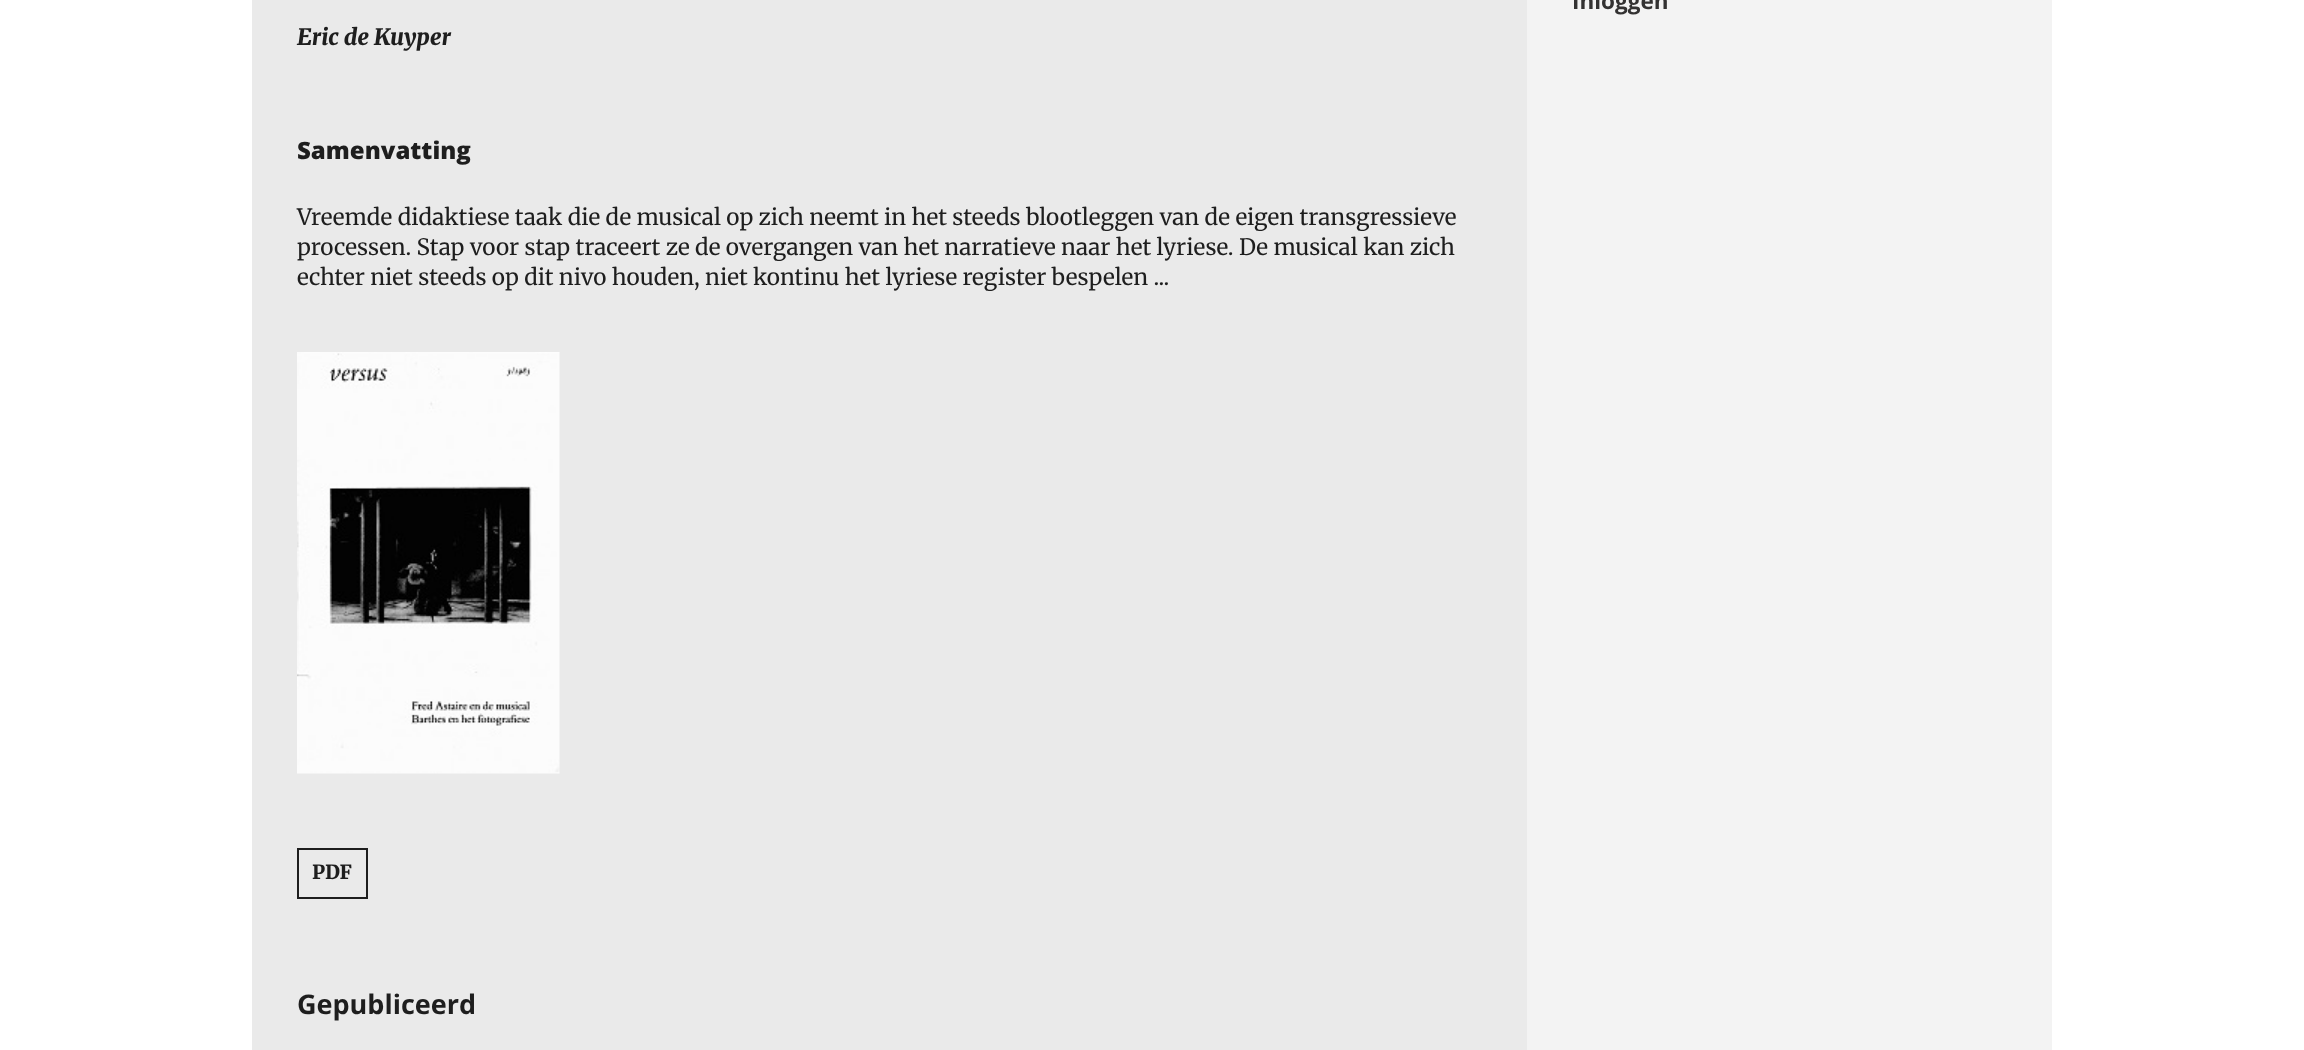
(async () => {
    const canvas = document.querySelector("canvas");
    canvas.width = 2304;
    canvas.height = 1050;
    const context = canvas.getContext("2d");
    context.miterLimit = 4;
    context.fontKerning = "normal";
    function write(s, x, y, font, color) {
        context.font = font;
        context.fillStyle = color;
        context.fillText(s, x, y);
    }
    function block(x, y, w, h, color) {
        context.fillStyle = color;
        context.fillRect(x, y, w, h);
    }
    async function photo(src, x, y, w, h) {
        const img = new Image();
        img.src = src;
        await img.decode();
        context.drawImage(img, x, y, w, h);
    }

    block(0, 0, 2304, 1050, "rgb(255, 255, 255)");
    block(1527, 0, 525, 1050, "rgb(243, 243, 243)");
    write("Inloggen", 1572, 9, "bold 22.5px Open Sans", "rgb(51, 50, 50)");
    block(252, 0, 1275, 1050, "rgb(234, 234, 234)");
    write("Eric de Kuyper", 297, 45, "italic 900 22.5px Merriweather", "rgb(30, 30, 30)");
    write("Samenvatting", 297, 159, "800 24px Open Sans", "rgb(30, 30, 30)");
    write("Vreemde didaktiese taak die de musical op zich neemt in het steeds blootleggen van de eigen transgressieve", 297, 225, "22.5px Merriweather", "rgb(30, 30, 30)");
    write("processen. Stap voor stap traceert ze de overgangen van het narratieve naar het lyriese. De musical kan zich", 297, 255, "22.5px Merriweather", "rgb(30, 30, 30)");
    write("echter niet steeds op dit nivo houden, niet kontinu het lyriese register bespelen ...", 297, 285, "22.5px Merriweather", "rgb(30, 30, 30)");
    await photo("media/1.png", 297, 352, 263, 422);
    context.strokeStyle = "rgb(30, 30, 30)";
    context.lineWidth = 2;
    context.strokeRect(298, 849, 69, 49);
    write("PDF", 312, 879, "900 19.5px Merriweather", "rgb(30, 30, 30)");
    write("Gepubliceerd", 297, 1014, "bold 27px Open Sans", "rgb(30, 30, 30)");
})();
